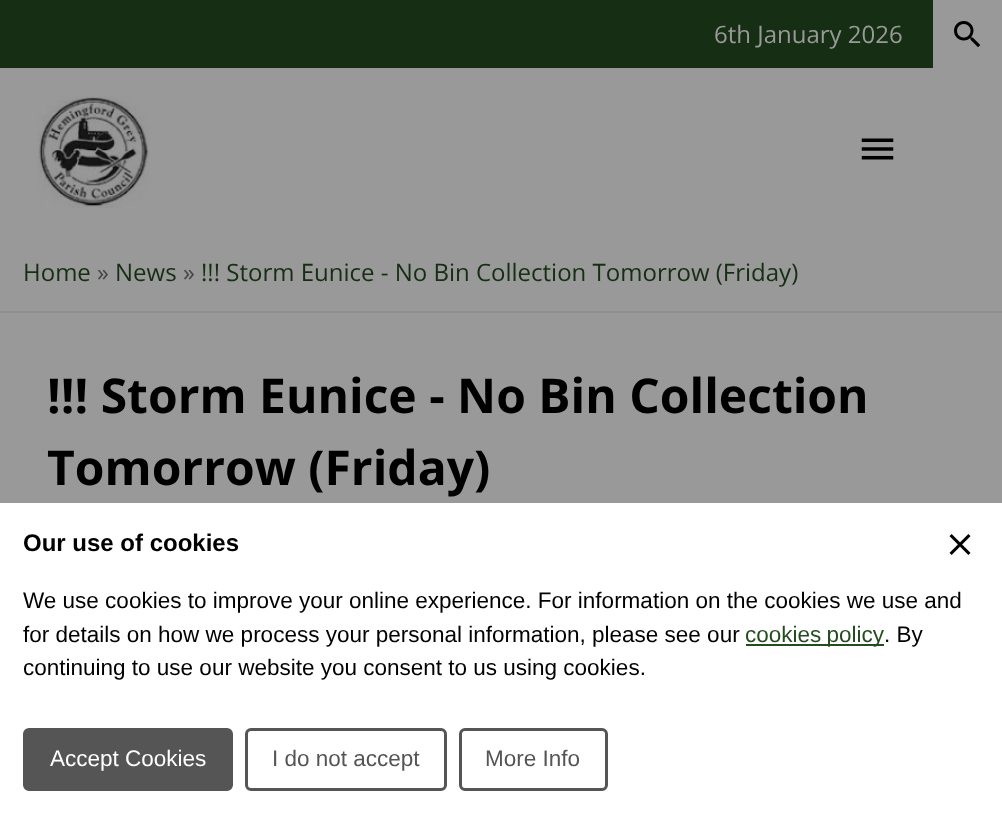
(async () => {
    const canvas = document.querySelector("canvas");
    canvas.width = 1002;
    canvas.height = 818;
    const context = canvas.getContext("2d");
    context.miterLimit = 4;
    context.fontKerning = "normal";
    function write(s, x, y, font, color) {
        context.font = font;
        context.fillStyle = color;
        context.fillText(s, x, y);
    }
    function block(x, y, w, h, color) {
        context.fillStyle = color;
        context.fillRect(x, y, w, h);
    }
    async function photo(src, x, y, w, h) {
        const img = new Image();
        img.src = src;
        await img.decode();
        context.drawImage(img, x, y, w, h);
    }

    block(0, 0, 1002, 818, "rgb(153, 153, 153)");
    block(0, 0, 933, 68, "rgb(22, 46, 19)");
    write("6th January 2026", 714, 43, "24px Open Sans", "rgb(153, 153, 153)");
    await photo("media/1.png", 954, 21, 27, 27);
    await photo("media/2.png", 37, 96, 113, 113);
    await photo("media/3.png", 861, 138, 33, 22);
    block(0, 311, 1002, 2, "rgb(143, 143, 143)");
    write("Home", 23, 281, "24px Open Sans", "rgb(22, 46, 19)");
    write("»", 97, 281, "24px Open Sans", "rgb(70, 70, 70)");
    write("News", 115, 281, "24px Open Sans", "rgb(22, 46, 19)");
    write("»", 183, 281, "24px Open Sans", "rgb(70, 70, 70)");
    write("!!! Storm Eunice - No Bin Collection Tomorrow (Friday)", 201, 281, "24px Open Sans", "rgb(22, 46, 19)");
    write("!!! Storm Eunice - No Bin Collection", 47, 413, "bold 48px Open Sans", "rgb(0, 0, 0)");
    write("Tomorrow (Friday)", 47, 485, "bold 48px Open Sans", "rgb(0, 0, 0)");
    block(0, 503, 1002, 315, "rgb(255, 255, 255)");
    write("Our use of cookies", 23, 551, "bold 24px Liberation Sans", "rgb(0, 0, 0)");
    await photo("media/4.png", 949, 534, 22, 21);
    write("We use cookies to improve your online experience. For information on the cookies we use and", 23, 608, "22.5px Liberation Sans", "rgb(0, 0, 0)");
    write("for details on how we process your personal information, please see our", 23, 642, "22.5px Liberation Sans", "rgb(0, 0, 0)");
    block(746, 644, 138, 2, "rgb(37, 76, 32)");
    context.wordSpacing = "-1px";
    write("cookies policy", 745, 642, "22.5px Liberation Sans", "rgb(37, 76, 32)");
    context.wordSpacing = "0px";
    write(". By", 884, 642, "22.5px Liberation Sans", "rgb(0, 0, 0)");
    write("continuing to use our website you consent to us using cookies.", 23, 675, "22.5px Liberation Sans", "rgb(0, 0, 0)");
    context.fillStyle = "rgb(85, 85, 85)";
    context.beginPath();
    context.roundRect(24.5, 729.5, 207, 60, 4.5);
    context.fill();
    context.strokeStyle = "rgb(85, 85, 85)";
    context.lineWidth = 3;
    context.stroke();
    write("Accept Cookies", 50, 766, "22.5px Liberation Sans", "rgb(255, 255, 255)");
    context.beginPath();
    context.roundRect(246.5, 729.5, 199, 60, 4.5);
    context.stroke();
    write("I do not accept", 272, 766, "22.5px Liberation Sans", "rgb(85, 85, 85)");
    context.beginPath();
    context.roundRect(460.5, 729.5, 146, 60, 4.5);
    context.stroke();
    write("More Info", 485, 766, "22.5px Liberation Sans", "rgb(85, 85, 85)");
})();
